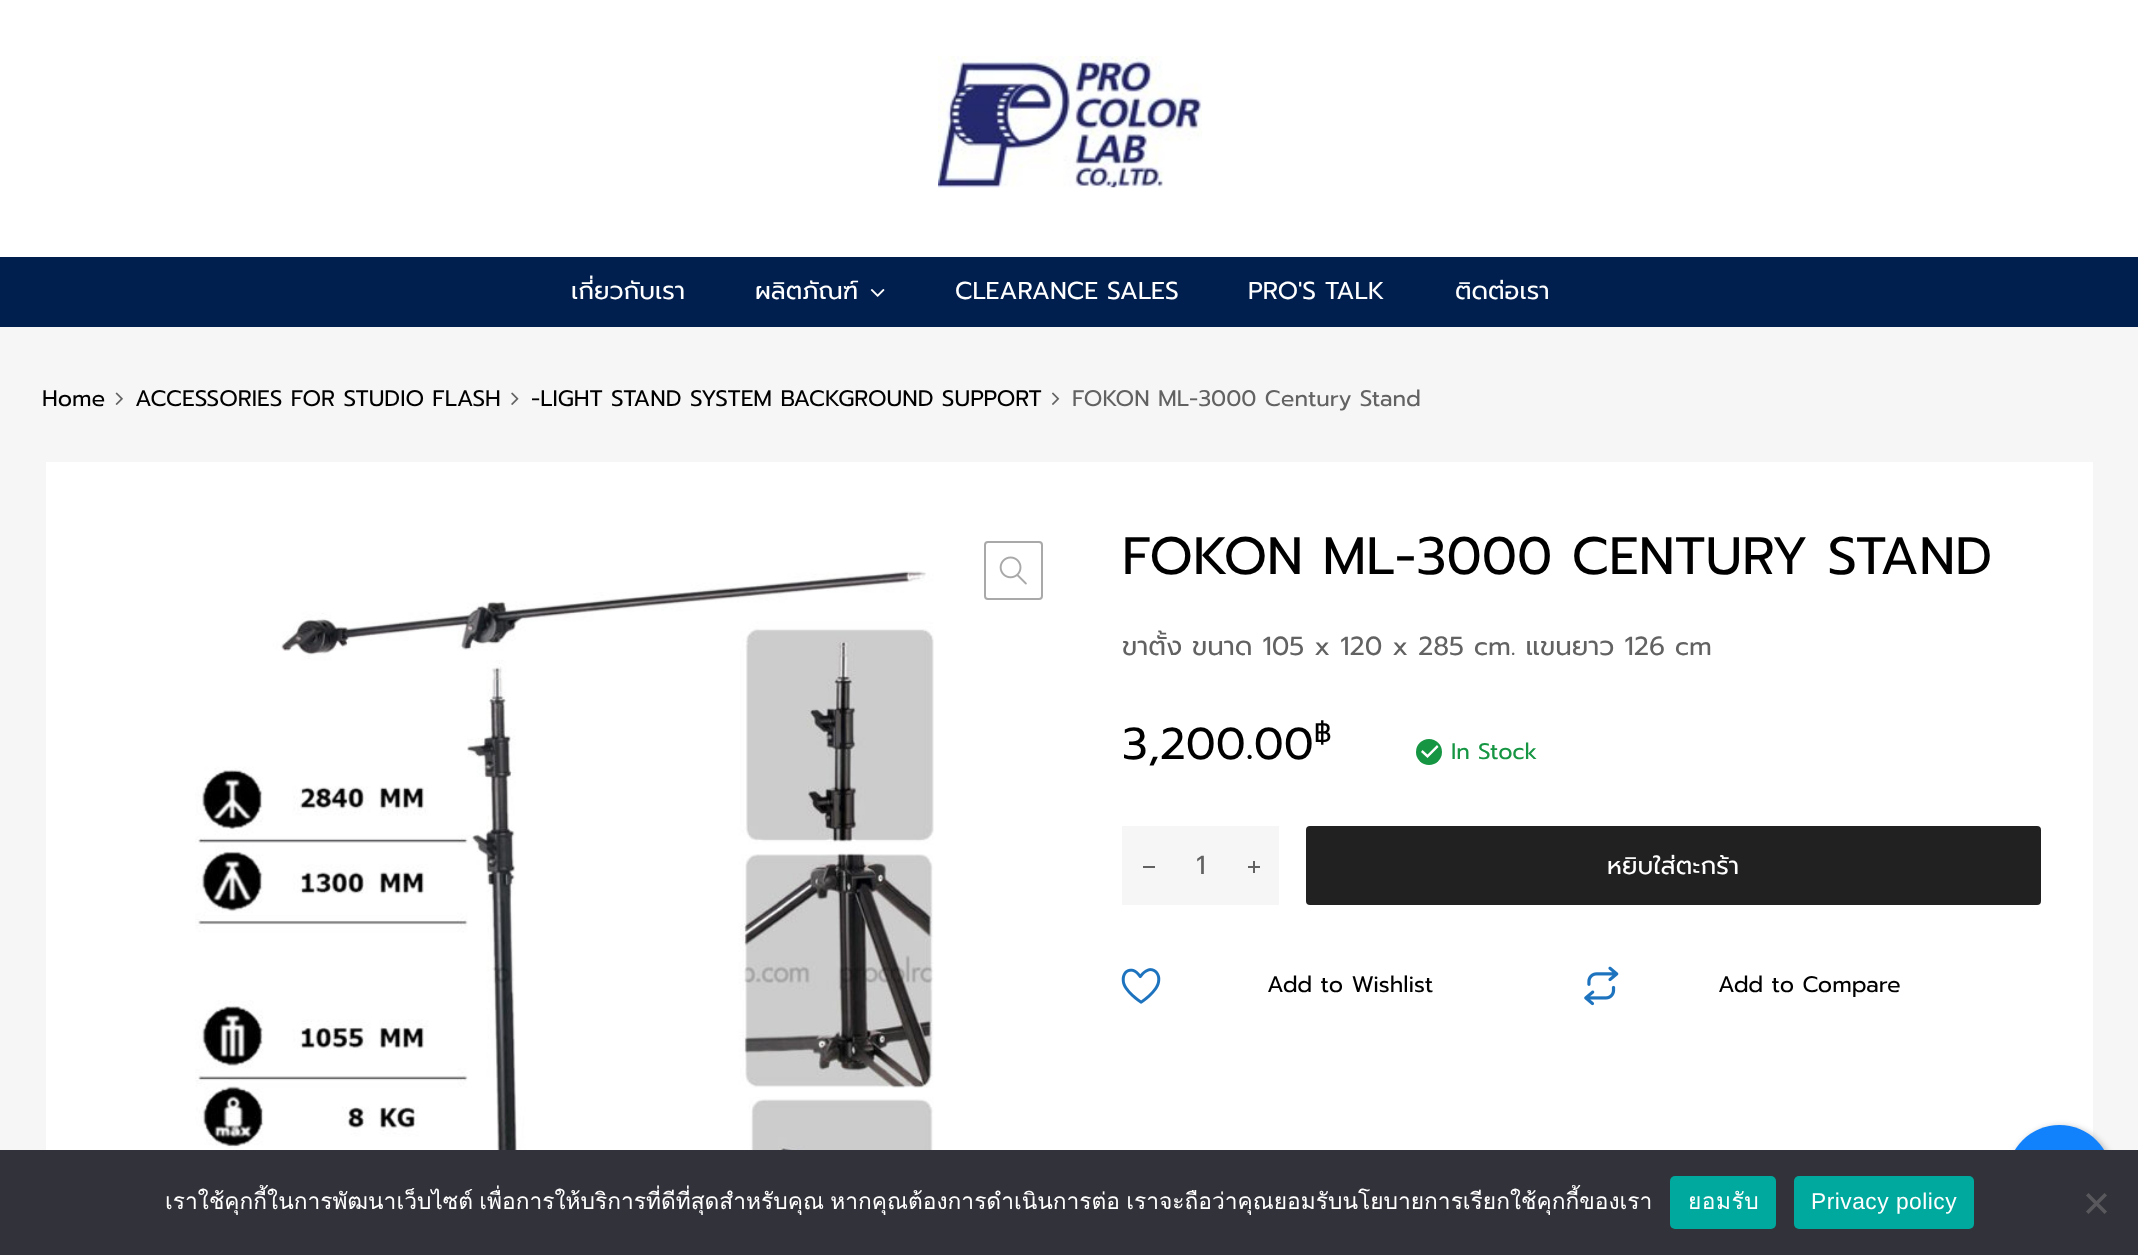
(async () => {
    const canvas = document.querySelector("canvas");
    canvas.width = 2138;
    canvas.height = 1255;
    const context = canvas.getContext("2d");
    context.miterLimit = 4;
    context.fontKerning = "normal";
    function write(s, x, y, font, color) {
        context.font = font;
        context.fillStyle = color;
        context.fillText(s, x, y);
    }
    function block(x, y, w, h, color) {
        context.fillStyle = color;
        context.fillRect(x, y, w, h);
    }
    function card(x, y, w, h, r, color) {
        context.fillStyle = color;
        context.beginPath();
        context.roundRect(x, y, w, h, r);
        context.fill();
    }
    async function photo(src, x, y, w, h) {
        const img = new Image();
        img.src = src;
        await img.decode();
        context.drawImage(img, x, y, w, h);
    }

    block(0, 0, 2138, 1255, "rgb(246, 246, 246)");
    block(0, 0, 2138, 257, "rgb(255, 255, 255)");
    await photo("media/1.png", 938, 56, 264, 132);
    block(0, 257, 2138, 70, "rgb(0, 31, 79)");
    write("เกี่ยวกับเรา", 571, 299, "24.5px Prompt", "rgb(255, 255, 255)");
    write("ผลิตภัณฑ์", 755, 299, "24.5px Prompt", "rgb(255, 255, 255)");
    await photo("media/2.png", 870, 289, 15, 8);
    write("CLEARANCE SALES", 955, 299, "24.5px Prompt", "rgb(255, 255, 255)");
    write("PRO'S TALK", 1248, 299, "24.5px Prompt", "rgb(255, 255, 255)");
    write("ติดต่อเรา", 1455, 299, "24.5px Prompt", "rgb(255, 255, 255)");
    write("Home", 42, 406, "22.5px Prompt", "rgb(0, 0, 0)");
    await photo("media/3.png", 115, 392, 8, 13);
    write("ACCESSORIES FOR STUDIO FLASH", 135, 406, "22.5px Prompt", "rgb(0, 0, 0)");
    await photo("media/4.png", 511, 392, 8, 13);
    write("-LIGHT STAND SYSTEM BACKGROUND SUPPORT", 531, 406, "22.5px Prompt", "rgb(0, 0, 0)");
    await photo("media/5.png", 1052, 392, 8, 13);
    write("FOKON ML-3000 Century Stand", 1072, 406, "22.5px Prompt", "rgb(98, 98, 98)");
    block(46, 462, 2047, 688, "rgb(255, 255, 255)");
    await photo("media/6.png", 195, 571, 739, 579);
    context.beginPath();
    context.roundRect(985, 542, 57, 57, 3);
    context.strokeStyle = "rgb(169, 169, 169)";
    context.lineWidth = 2;
    context.stroke();
    await photo("media/7.png", 999, 556, 28, 29);
    write("FOKON ML-3000 CENTURY STAND", 1122, 574, "52.5px Prompt", "rgb(0, 0, 0)");
    write("ขาตั้ง ขนาด 105 x 120 x 285 cm. แขนยาว 126 cm", 1122, 655, "26.25px Prompt", "rgb(98, 98, 98)");
    write("3,200.00", 1122, 759, "44.5px Prompt", "rgb(0, 0, 0)");
    write("฿", 1314, 742, "27px Prompt", "rgb(0, 0, 0)");
    context.fillStyle = "rgb(22, 149, 67)";
    context.beginPath();
    context.arc(1429, 752, 13, 0, Math.PI * 2);
    context.fill();
    context.fillStyle = "rgb(255, 255, 255)";
    context.beginPath();
    context.moveTo(1437, 745);
    context.lineTo(1427.5, 754.5);
    context.lineTo(1422.5, 750);
    context.lineTo(1421, 752);
    context.lineTo(1427.5, 758);
    context.lineTo(1438.5, 747);
    context.closePath();
    context.fill();
    write("In Stock", 1451, 759, "22.5px Prompt", "rgb(22, 149, 67)");
    block(1122, 826, 157, 79, "rgb(246, 246, 246)");
    block(1143, 866, 12, 2, "rgb(98, 98, 98)");
    write("1", 1196, 874, "26.25px Prompt", "rgb(98, 98, 98)");
    block(1253, 861, 2, 12, "rgb(98, 98, 98)");
    block(1248, 866, 12, 2, "rgb(98, 98, 98)");
    card(1306, 826, 735, 79, 4, "rgb(33, 33, 33)");
    write("หยิบใส่ตะกร้า", 1607, 874, "24.5px Prompt", "rgb(255, 255, 255)");
    await photo("media/8.png", 1121, 968, 40, 36);
    write("Add to Wishlist", 1267, 992, "22.5px Prompt", "rgb(0, 0, 0)");
    await photo("media/9.png", 1584, 966, 35, 40);
    write("Add to Compare", 1718, 992, "22.5px Prompt", "rgb(0, 0, 0)");
    context.fillStyle = "rgba(0, 0, 0, 0.3)";
    context.filter = "blur(3.5px)";
    context.beginPath();
    context.roundRect(2009, 1127, 105, 105, 52.5);
    context.fill();
    context.filter = "none";
    context.fillStyle = "rgb(17, 130, 252)";
    context.beginPath();
    context.arc(2059.5, 1177.5, 52.5, 0, Math.PI * 2);
    context.fill();
    block(0, 1150, 2138, 105, "rgb(50, 50, 58)");
    context.wordSpacing = "-1.5px";
    write("เราใช้คุกกี้ในการพัฒนาเว็บไซต์ เพื่อการให้บริการที่ดีที่สุดสำหรับคุณ หากคุณต้องการดำเนินการต่อ เราจะถือว่าคุณยอมรับนโยบายการเรียกใช้คุกกี้ของเรา", 165, 1209, "22.75px Loma", "rgb(255, 255, 255)");
    card(1670, 1176, 106, 53, 5, "rgb(0, 169, 157)");
    context.letterSpacing = "0.5px";
    context.wordSpacing = "0px";
    write("ยอมรับ", 1688, 1209, "22.75px Loma", "rgb(255, 255, 255)");
    card(1794, 1176, 180, 53, 5, "rgb(0, 169, 157)");
    write("Privacy policy", 1811, 1209, "22.75px Liberation Sans", "rgb(255, 255, 255)");
    context.fillStyle = "rgb(89, 89, 93)";
    context.beginPath();
    context.moveTo(2104.5, 1193);
    context.lineTo(2107, 1195.5);
    context.lineTo(2088.5, 1214);
    context.lineTo(2086, 1211.5);
    context.closePath();
    context.fill();
    context.beginPath();
    context.moveTo(2086, 1195.5);
    context.lineTo(2088.5, 1193);
    context.lineTo(2107, 1211.5);
    context.lineTo(2104.5, 1214);
    context.closePath();
    context.fill();
})();
